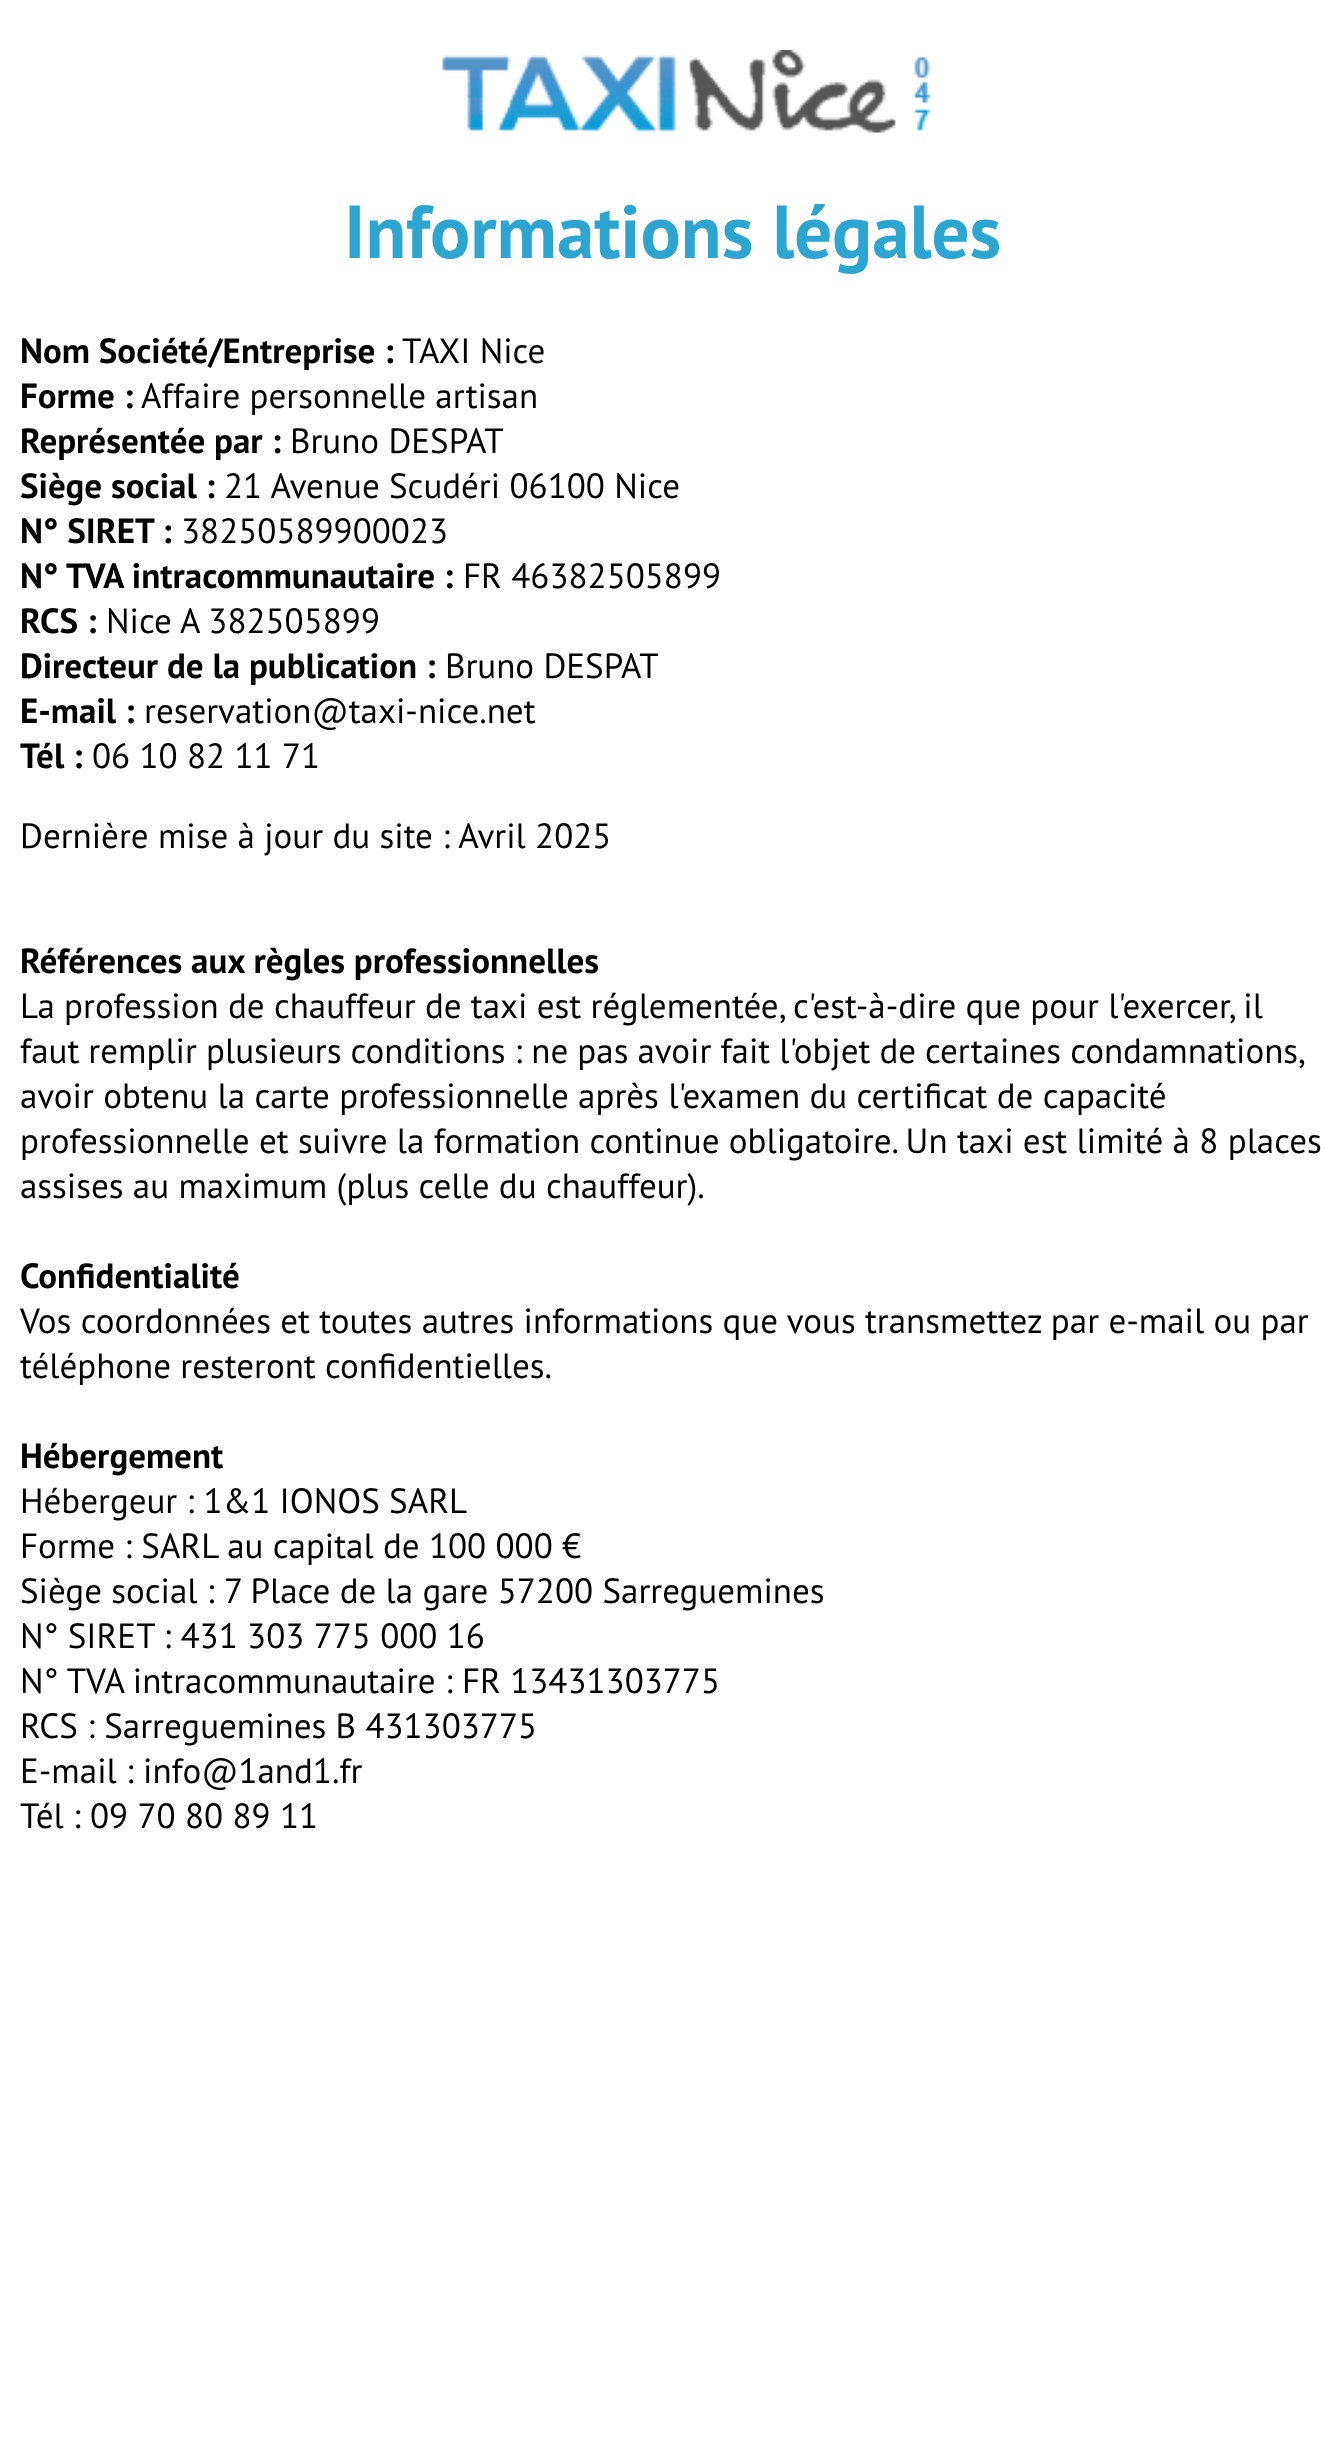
(async () => {
    const canvas = document.querySelector("canvas");
    canvas.width = 1344;
    canvas.height = 2453;
    const context = canvas.getContext("2d");
    context.miterLimit = 4;
    context.fontKerning = "normal";
    function write(s, x, y, font, color) {
        context.font = font;
        context.fillStyle = color;
        context.fillText(s, x, y);
    }
    function block(x, y, w, h, color) {
        context.fillStyle = color;
        context.fillRect(x, y, w, h);
    }
    async function photo(src, x, y, w, h) {
        const img = new Image();
        img.src = src;
        await img.decode();
        context.drawImage(img, x, y, w, h);
    }

    block(0, 0, 1344, 2453, "rgb(255, 255, 255)");
    await photo("media/1.png", 441, 50, 490, 83);
    write("Informations légales", 344, 258, "bold 75px PT Sans", "rgb(44, 166, 209)");
    write("Nom Société/Entreprise :", 20, 363, "bold 35px PT Sans", "rgb(0, 0, 0)");
    write("TAXI Nice", 402, 363, "35px PT Sans", "rgb(0, 0, 0)");
    write("Forme :", 20, 408, "bold 35px PT Sans", "rgb(0, 0, 0)");
    write("Affaire personnelle artisan", 141, 408, "35px PT Sans", "rgb(0, 0, 0)");
    write("Représentée par :", 20, 453, "bold 35px PT Sans", "rgb(0, 0, 0)");
    write("Bruno DESPAT", 290, 453, "35px PT Sans", "rgb(0, 0, 0)");
    write("Siège social :", 20, 498, "bold 35px PT Sans", "rgb(0, 0, 0)");
    write("21 Avenue Scudéri 06100 Nice", 224, 498, "35px PT Sans", "rgb(0, 0, 0)");
    write("N° SIRET :", 20, 543, "bold 35px PT Sans", "rgb(0, 0, 0)");
    write("38250589900023", 181, 543, "35px PT Sans", "rgb(0, 0, 0)");
    write("N° TVA intracommunautaire :", 20, 588, "bold 35px PT Sans", "rgb(0, 0, 0)");
    write("FR 46382505899", 463, 588, "35px PT Sans", "rgb(0, 0, 0)");
    write("RCS :", 20, 633, "bold 35px PT Sans", "rgb(0, 0, 0)");
    write("Nice A 382505899", 106, 633, "35px PT Sans", "rgb(0, 0, 0)");
    write("Directeur de la publication :", 20, 678, "bold 35px PT Sans", "rgb(0, 0, 0)");
    write("Bruno DESPAT", 445, 678, "35px PT Sans", "rgb(0, 0, 0)");
    write("E-mail :", 20, 723, "bold 35px PT Sans", "rgb(0, 0, 0)");
    write("reservation@taxi-nice.net", 144, 723, "35px PT Sans", "rgb(0, 0, 0)");
    write("Tél :", 20, 768, "bold 35px PT Sans", "rgb(0, 0, 0)");
    write("06 10 82 11 71", 92, 768, "35px PT Sans", "rgb(0, 0, 0)");
    write("Dernière mise à jour du site : Avril 2025", 20, 848, "35px PT Sans", "rgb(0, 0, 0)");
    write("Références aux règles professionnelles", 20, 973, "bold 35px PT Sans", "rgb(0, 0, 0)");
    write("La profession de chauffeur de taxi est réglementée, c'est-à-dire que pour l'exercer, il", 20, 1018, "35px PT Sans", "rgb(0, 0, 0)");
    context.wordSpacing = "-0.25px";
    write("faut remplir plusieurs conditions : ne pas avoir fait l'objet de certaines condamnations,", 20, 1063, "35px PT Sans", "rgb(0, 0, 0)");
    context.wordSpacing = "0px";
    write("avoir obtenu la carte professionnelle après l'examen du certificat de capacité", 20, 1108, "35px PT Sans", "rgb(0, 0, 0)");
    write("professionnelle et suivre la formation continue obligatoire. Un taxi est limité à 8 places", 20, 1153, "35px PT Sans", "rgb(0, 0, 0)");
    write("assises au maximum (plus celle du chauffeur).", 20, 1198, "35px PT Sans", "rgb(0, 0, 0)");
    write("Confidentialité", 20, 1288, "bold 35px PT Sans", "rgb(0, 0, 0)");
    write("Vos coordonnées et toutes autres informations que vous transmettez par e-mail ou par", 20, 1333, "35px PT Sans", "rgb(0, 0, 0)");
    write("téléphone resteront confidentielles.", 20, 1378, "35px PT Sans", "rgb(0, 0, 0)");
    write("Hébergement", 20, 1468, "bold 35px PT Sans", "rgb(0, 0, 0)");
    write("Hébergeur : 1&1 IONOS SARL", 20, 1513, "35px PT Sans", "rgb(0, 0, 0)");
    write("Forme : SARL au capital de 100 000 €", 20, 1558, "35px PT Sans", "rgb(0, 0, 0)");
    write("Siège social : 7 Place de la gare 57200 Sarreguemines", 20, 1603, "35px PT Sans", "rgb(0, 0, 0)");
    write("N° SIRET : 431 303 775 000 16", 20, 1648, "35px PT Sans", "rgb(0, 0, 0)");
    write("N° TVA intracommunautaire : FR 13431303775", 20, 1693, "35px PT Sans", "rgb(0, 0, 0)");
    write("RCS : Sarreguemines B 431303775", 20, 1738, "35px PT Sans", "rgb(0, 0, 0)");
    write("E-mail : info@1and1.fr", 20, 1783, "35px PT Sans", "rgb(0, 0, 0)");
    write("Tél : 09 70 80 89 11", 20, 1828, "35px PT Sans", "rgb(0, 0, 0)");
})();
